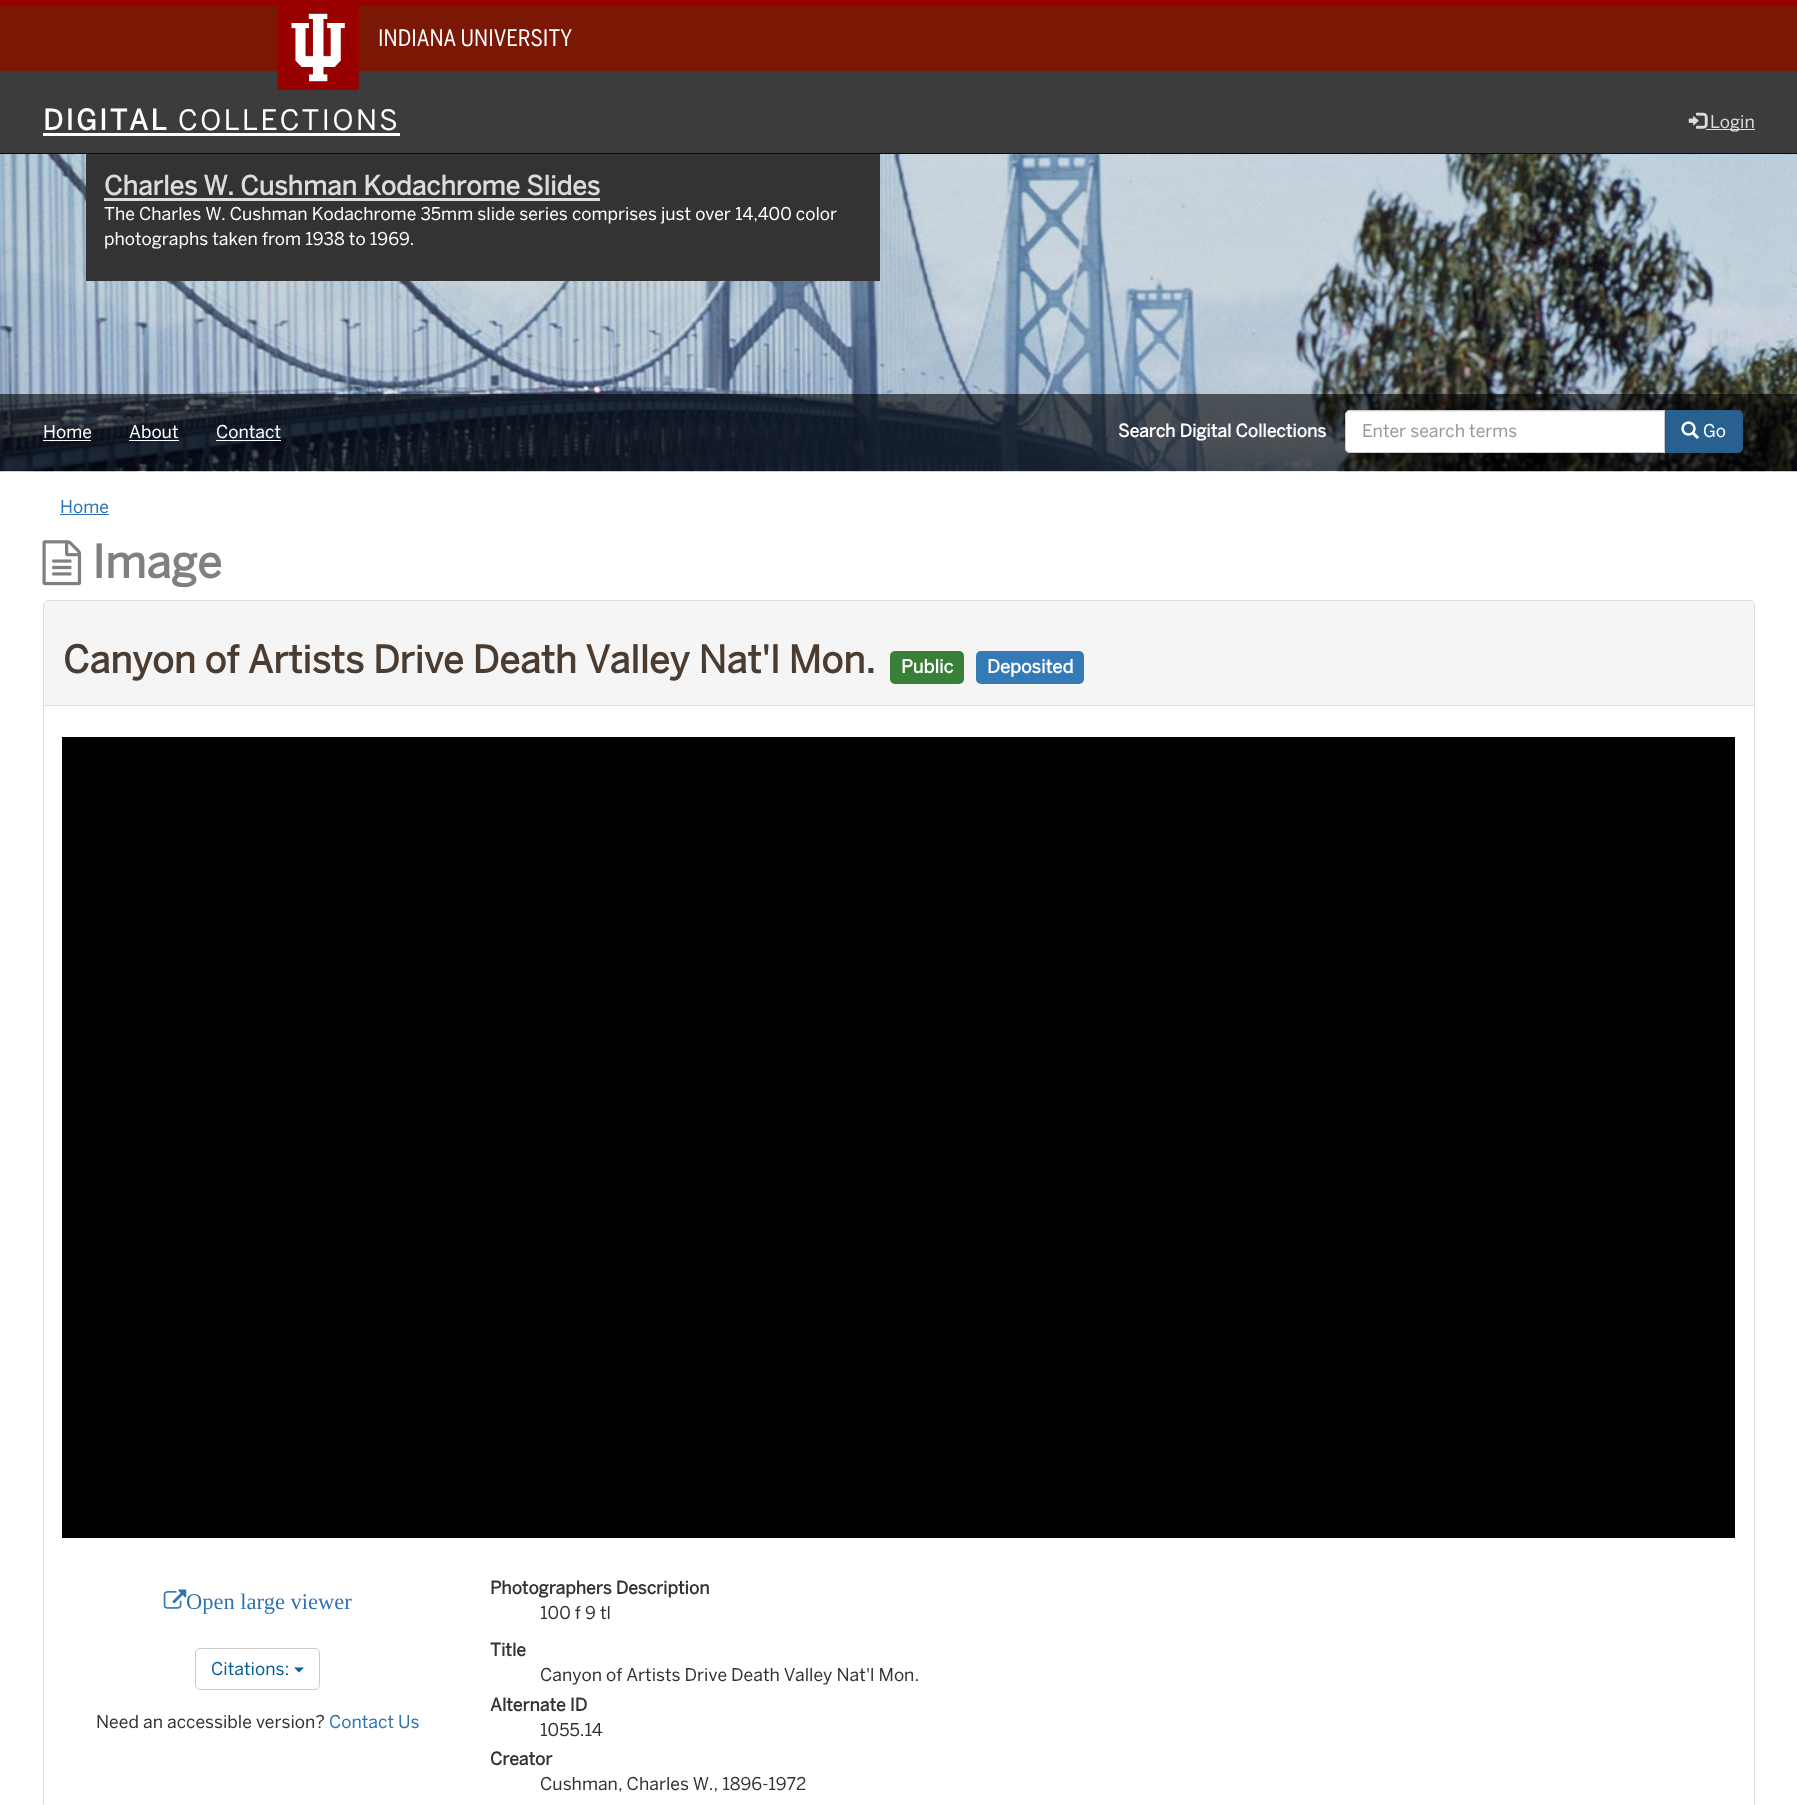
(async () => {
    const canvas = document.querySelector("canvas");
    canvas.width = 1797;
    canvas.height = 1805;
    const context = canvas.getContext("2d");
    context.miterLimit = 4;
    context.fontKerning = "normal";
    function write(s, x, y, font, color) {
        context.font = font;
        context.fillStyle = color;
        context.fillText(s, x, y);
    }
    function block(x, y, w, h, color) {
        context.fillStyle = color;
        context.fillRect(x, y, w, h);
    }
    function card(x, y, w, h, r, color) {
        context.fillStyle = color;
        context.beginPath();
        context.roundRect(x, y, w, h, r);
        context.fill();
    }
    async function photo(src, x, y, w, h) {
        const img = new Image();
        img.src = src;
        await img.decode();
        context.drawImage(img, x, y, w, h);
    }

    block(0, 0, 1797, 1805, "rgb(255, 255, 255)");
    block(0, 6, 1797, 65, "rgb(122, 23, 5)");
    block(0, 0, 1797, 6, "rgb(153, 0, 0)");
    block(0, 71, 1797, 82, "rgb(60, 60, 60)");
    await photo("media/1.png", 277, 6, 82, 84);
    write("INDIANA UNIVERSITY", 378, 46, "22.5px 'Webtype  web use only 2'", "rgb(255, 255, 255)");
    block(0, 153, 1797, 1, "rgb(9, 9, 9)");
    context.letterSpacing = "2.5px";
    write("DIGITAL", 43, 130, "bold 28px 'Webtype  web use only'", "rgb(255, 255, 255)");
    block(43, 133, 357, 3, "rgb(255, 255, 255)");
    write("COLLECTIONS", 178, 130, "28px 'Webtype  web use only'", "rgb(255, 255, 255)");
    await photo("media/2.png", 1688, 112, 20, 17);
    block(1706, 129, 49, 1, "rgb(220, 220, 220)");
    context.letterSpacing = "0px";
    write("Login", 1710, 128, "17.5px 'Webtype  web use only'", "rgb(220, 220, 220)");
    await photo("media/3.png", 0, 154, 1797, 318);
    block(86, 154, 794, 127, "rgb(51, 51, 51)");
    write("Charles W. Cushman Kodachrome Slides", 104, 195, "bold 26.25px 'Webtype  web use only'", "rgb(220, 220, 220)");
    block(104, 198, 496, 3, "rgb(220, 220, 220)");
    write("The Charles W. Cushman Kodachrome 35mm slide series comprises just over 14,400 color", 104, 220, "17.5px 'Webtype  web use only'", "rgb(255, 255, 255)");
    write("photographs taken from 1938 to 1969.", 104, 245, "17.5px 'Webtype  web use only'", "rgb(255, 255, 255)");
    block(0, 394, 1797, 77, "rgba(0, 0, 0, 0.6)");
    write("Home", 43, 438, "17.5px 'Webtype  web use only'", "rgb(255, 255, 255)");
    block(43, 440, 48, 1, "rgb(255, 255, 255)");
    write("About", 129, 438, "17.5px 'Webtype  web use only'", "rgb(255, 255, 255)");
    block(129, 440, 50, 1, "rgb(255, 255, 255)");
    write("Contact", 216, 438, "17.5px 'Webtype  web use only'", "rgb(255, 255, 255)");
    block(216, 440, 65, 1, "rgb(255, 255, 255)");
    write("Search Digital Collections", 1118, 437, "bold 17.5px 'Webtype  web use only'", "rgb(255, 255, 255)");
    context.beginPath();
    context.roundRect(1345, 410, 320, 43, [5, 0, 0, 5]);
    context.fill();
    context.fillStyle = "rgb(236, 236, 236)";
    context.beginPath();
    context.moveTo(1350, 412);
    context.lineTo(1664, 412);
    context.lineTo(1664, 411);
    context.lineTo(1350, 411);
    context.bezierCurveTo(1348, 411, 1346, 413, 1346, 415);
    context.lineTo(1346, 416);
    context.bezierCurveTo(1346, 414, 1348, 412, 1350, 412);
    context.closePath();
    context.fill();
    context.beginPath();
    context.roundRect(1345.5, 410.5, 319, 42, [4.5, 0, 0, 4.5]);
    context.strokeStyle = "rgb(204, 204, 204)";
    context.stroke();
    write("Enter search terms", 1362, 437, "17.5px 'Webtype  web use only'", "rgb(153, 153, 153)");
    context.fillStyle = "rgb(40, 96, 144)";
    context.beginPath();
    context.roundRect(1665.5, 410.5, 77, 42, [0, 4.5, 4.5, 0]);
    context.fill();
    context.strokeStyle = "rgb(38, 91, 137)";
    context.stroke();
    await photo("media/4.png", 1681, 421, 18, 18);
    write("Go", 1703, 437, "17.5px 'Webtype  web use only'", "rgb(255, 255, 255)");
    write("Home", 60, 513, "17.5px 'Webtype  web use only'", "rgb(46, 116, 178)");
    block(60, 514, 49, 1, "rgb(46, 116, 178)");
    await photo("media/5.png", 42, 540, 40, 46);
    write("Image", 92, 578, "bold 45px 'Webtype  web use only'", "rgb(128, 128, 128)");
    context.beginPath();
    context.roundRect(43.5, 600.5, 1711, 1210, 4.5);
    context.strokeStyle = "rgb(221, 221, 221)";
    context.stroke();
    context.fillStyle = "rgb(245, 245, 245)";
    context.beginPath();
    context.roundRect(44, 601, 1710, 105, [4, 4, 0, 0]);
    context.fill();
    block(44, 705, 1710, 1, "rgb(221, 221, 221)");
    write("Canyon of Artists Drive Death Valley Nat'l Mon.", 63, 673, "bold 37.5px 'Webtype  web use only'", "rgb(74, 60, 49)");
    card(890, 651, 74, 33, 5, "rgb(56, 127, 56)");
    write("Public", 901, 673, "bold 18.25px 'Webtype  web use only'", "rgb(255, 255, 255)");
    card(976, 651, 108, 33, 5, "rgb(51, 122, 183)");
    write("Deposited", 987, 673, "bold 18.25px 'Webtype  web use only'", "rgb(255, 255, 255)");
    block(62, 737, 1673, 801, "rgb(0, 0, 0)");
    await photo("media/6.png", 163, 1589, 24, 20);
    write("Open large viewer", 186, 1609, "22.5px Liberation Serif", "rgb(46, 116, 178)");
    context.beginPath();
    context.roundRect(195.5, 1648.5, 124, 41, 4.5);
    context.strokeStyle = "rgb(204, 204, 204)";
    context.stroke();
    write("Citations:", 211, 1675, "17.5px 'Webtype  web use only'", "rgb(0, 98, 152)");
    context.beginPath();
    context.moveTo(294, 1667.5);
    context.lineTo(304, 1667.5);
    context.lineTo(299, 1672.5);
    context.closePath();
    context.fill();
    write("Need an accessible version?", 96, 1728, "17.5px 'Webtype  web use only'", "rgb(51, 51, 51)");
    write("Contact Us", 329, 1728, "17.5px 'Webtype  web use only'", "rgb(46, 116, 178)");
    write("Photographers Description", 490, 1594, "bold 17.5px 'Webtype  web use only'", "rgb(51, 51, 51)");
    write("100 f 9 tl", 540, 1619, "17.5px 'Webtype  web use only'", "rgb(51, 51, 51)");
    write("Title", 490, 1656, "bold 17.5px 'Webtype  web use only'", "rgb(51, 51, 51)");
    write("Canyon of Artists Drive Death Valley Nat'l Mon.", 540, 1681, "17.5px 'Webtype  web use only'", "rgb(51, 51, 51)");
    write("Alternate ID", 490, 1711, "bold 17.5px 'Webtype  web use only'", "rgb(51, 51, 51)");
    write("1055.14", 540, 1736, "17.5px 'Webtype  web use only'", "rgb(51, 51, 51)");
    write("Creator", 490, 1765, "bold 17.5px 'Webtype  web use only'", "rgb(51, 51, 51)");
    write("Cushman, Charles W., 1896-1972", 540, 1790, "17.5px 'Webtype  web use only'", "rgb(51, 51, 51)");
})();
